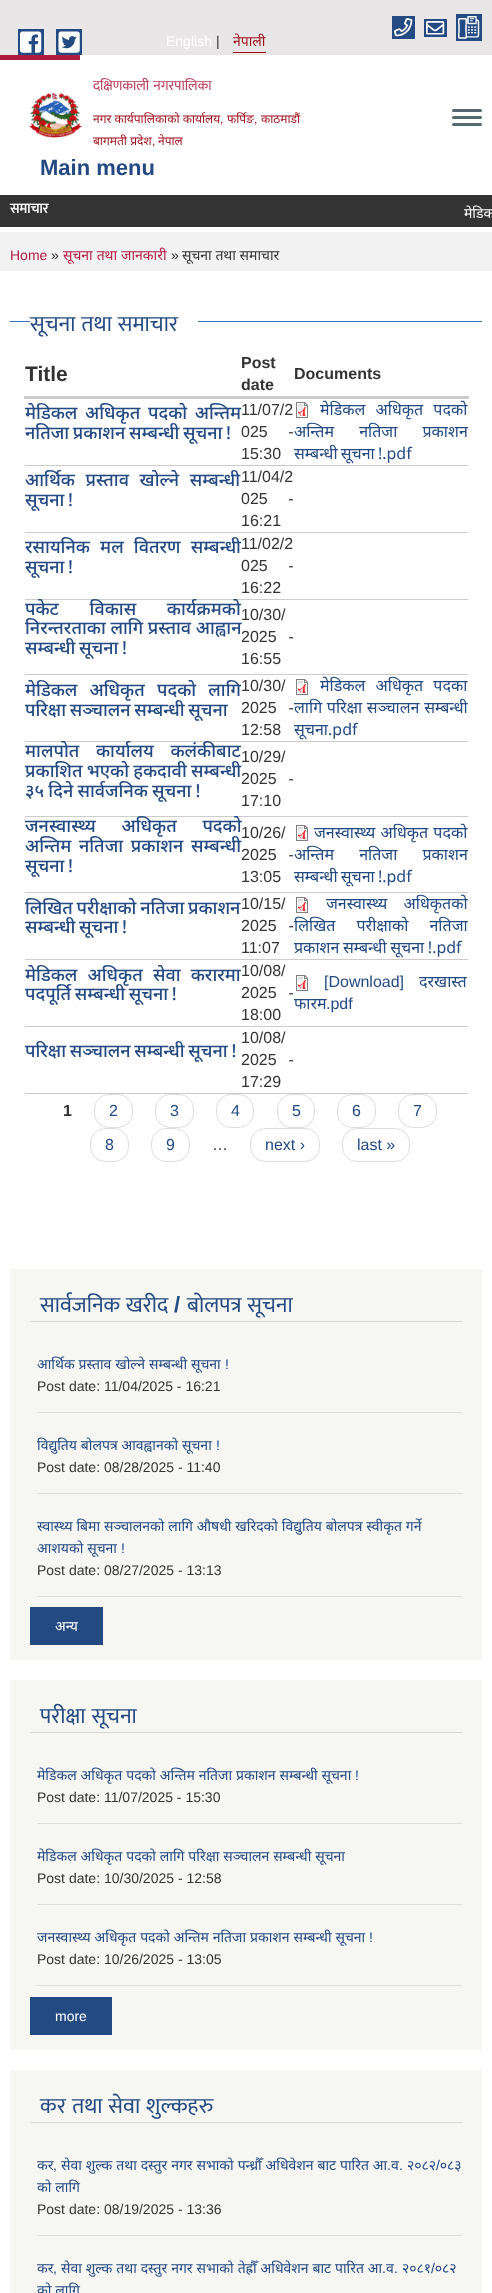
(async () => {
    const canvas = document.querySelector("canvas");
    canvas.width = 492;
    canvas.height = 2293;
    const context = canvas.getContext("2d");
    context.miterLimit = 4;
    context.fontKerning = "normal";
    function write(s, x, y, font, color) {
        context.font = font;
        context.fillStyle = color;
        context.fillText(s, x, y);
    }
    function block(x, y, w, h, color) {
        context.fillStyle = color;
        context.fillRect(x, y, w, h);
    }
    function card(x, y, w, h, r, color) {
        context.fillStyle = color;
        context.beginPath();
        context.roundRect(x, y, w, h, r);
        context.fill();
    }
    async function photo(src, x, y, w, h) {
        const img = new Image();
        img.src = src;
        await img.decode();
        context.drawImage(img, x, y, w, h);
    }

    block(0, 0, 492, 2293, "rgb(255, 255, 255)");
    block(0, 0, 492, 55, "rgb(232, 230, 230)");
    block(18, 29, 26, 26, "rgb(35, 74, 131)");
    block(56, 29, 26, 26, "rgb(35, 74, 131)");
    await photo("media/1.png", 20, 31, 22, 22);
    await photo("media/2.png", 58, 31, 22, 22);
    write("English", 166, 46, "14px Liberation Sans", "rgb(255, 255, 255)");
    write("|", 216, 46, "14px Liberation Sans", "rgb(51, 51, 51)");
    block(233, 52, 33, 1, "rgb(158, 12, 24)");
    write("नेपाली", 233, 46, "14px Noto Sans", "rgb(158, 12, 24)");
    block(392, 16, 23, 23, "rgb(35, 74, 131)");
    block(456, 14, 26, 27, "rgb(35, 74, 131)");
    await photo("media/3.png", 394, 18, 19, 19);
    block(424, 19, 23, 18, "rgb(35, 74, 131)");
    await photo("media/4.png", 458, 16, 22, 23);
    await photo("media/5.png", 426, 21, 19, 14);
    block(0, 55, 80, 5, "rgb(178, 28, 66)");
    await photo("media/6.png", 29, 92, 54, 46);
    context.wordSpacing = "1px";
    write("दक्षिणकाली नगरपालिका", 93, 90, "14px Mukta", "rgb(184, 57, 85)");
    context.wordSpacing = "0px";
    write("नगर कार्यपालिकाको कार्यालय", 93, 123, "12px Noto Sans", "rgb(158, 12, 24)");
    write(",", 220, 123, "12px Liberation Sans", "rgb(158, 12, 24)");
    write("फर्पिङ", 227, 123, "12px Noto Sans", "rgb(158, 12, 24)");
    write(",", 254, 123, "12px Liberation Sans", "rgb(158, 12, 24)");
    write("काठमाडौं", 261, 123, "12px Noto Sans", "rgb(158, 12, 24)");
    context.wordSpacing = "0.25px";
    write("बागमती प्रदेश", 93, 145, "12px Noto Sans", "rgb(158, 12, 24)");
    context.wordSpacing = "0px";
    write(",", 152, 145, "12px Liberation Sans", "rgb(158, 12, 24)");
    write("नेपाल", 158, 145, "12px Noto Sans", "rgb(158, 12, 24)");
    write("Main menu", 40, 175, "bold 22px Liberation Sans", "rgb(35, 74, 131)");
    card(452, 109, 30, 3, 1.5, "rgb(86, 105, 115)");
    card(452, 116, 30, 3, 1.5, "rgb(86, 105, 115)");
    card(452, 123, 30, 3, 1.5, "rgb(86, 105, 115)");
    block(0, 195, 492, 32, "rgb(51, 51, 51)");
    write("समाचार", 10, 213, "bold 14px Mukta", "rgb(255, 255, 255)");
    context.wordSpacing = "0.25px";
    write("मेडिक", 464, 218, "14px Noto Sans", "rgb(255, 255, 255)");
    block(0, 232, 492, 39, "rgb(242, 242, 242)");
    context.wordSpacing = "0px";
    write("Home", 10, 260, "14px Liberation Sans", "rgb(178, 28, 66)");
    write("»", 51, 260, "14px Liberation Sans", "rgb(51, 51, 51)");
    context.wordSpacing = "0.25px";
    write("सूचना तथा जानकारी", 63, 260, "14px Noto Sans", "rgb(178, 28, 66)");
    context.wordSpacing = "0px";
    write("»", 171, 260, "14px Liberation Sans", "rgb(51, 51, 51)");
    write("सूचना तथा समाचार", 182, 260, "14px Noto Sans", "rgb(51, 51, 51)");
    block(10, 321, 472, 1, "rgb(55, 111, 194)");
    block(30, 321, 168, 1, "rgb(255, 255, 255)");
    context.wordSpacing = "1px";
    write("सूचना तथा समाचार", 30, 331, "22px Mukta", "rgb(35, 74, 131)");
    context.wordSpacing = "0px";
    write("Title", 25, 381, "bold 21px Liberation Sans", "rgb(51, 51, 51)");
    write("Post", 241, 368, "bold 16px Liberation Sans", "rgb(51, 51, 51)");
    write("date", 241, 390, "bold 16px Liberation Sans", "rgb(51, 51, 51)");
    block(24, 396, 445, 3, "rgb(204, 204, 204)");
    write("Documents", 294, 379, "bold 16px Liberation Sans", "rgb(51, 51, 51)");
    block(25, 465, 443, 1, "rgb(204, 204, 204)");
    context.wordSpacing = "3px";
    write("मेडिकल अधिकृत पदको अन्तिम", 25, 419, "500 18px Noto Sans", "rgb(35, 74, 131)");
    context.wordSpacing = "-1px";
    write("नतिजा प्रकाशन सम्बन्धी सूचना !", 25, 439, "500 18px Noto Sans", "rgb(35, 74, 131)");
    context.wordSpacing = "0px";
    write("11/07/2", 241, 415, "16px Liberation Sans", "rgb(51, 51, 51)");
    context.wordSpacing = "16px";
    write("025 -", 241, 437, "16px Liberation Sans", "rgb(51, 51, 51)");
    context.wordSpacing = "0px";
    write("15:30", 241, 459, "16px Liberation Sans", "rgb(51, 51, 51)");
    await photo("media/7.png", 296, 402, 12, 16);
    context.wordSpacing = "6px";
    write("मेडिकल अधिकृत पदको", 320, 415, "16px Noto Sans", "rgb(35, 74, 131)");
    context.wordSpacing = "21px";
    write("अन्तिम नतिजा प्रकाशन", 294, 437, "16px Noto Sans", "rgb(35, 74, 131)");
    context.wordSpacing = "-1px";
    write("सम्बन्धी सूचना !.pdf", 294, 459, "16px Noto Sans", "rgb(35, 74, 131)");
    block(25, 532, 443, 1, "rgb(204, 204, 204)");
    context.wordSpacing = "6px";
    write("आर्थिक प्रस्ताव खोल्ने सम्बन्धी", 25, 486, "500 18px Noto Sans", "rgb(35, 74, 131)");
    context.wordSpacing = "-1px";
    write("सूचना !", 25, 506, "500 18px Noto Sans", "rgb(35, 74, 131)");
    context.wordSpacing = "0px";
    write("11/04/2", 241, 482, "16px Liberation Sans", "rgb(51, 51, 51)");
    context.wordSpacing = "16px";
    write("025 -", 241, 504, "16px Liberation Sans", "rgb(51, 51, 51)");
    context.wordSpacing = "0px";
    write("16:21", 241, 526, "16px Liberation Sans", "rgb(51, 51, 51)");
    block(25, 599, 443, 1, "rgb(204, 204, 204)");
    context.wordSpacing = "5.5px";
    write("रसायनिक मल वितरण सम्बन्धी", 25, 553, "500 18px Noto Sans", "rgb(35, 74, 131)");
    context.wordSpacing = "-1px";
    write("सूचना !", 25, 573, "500 18px Noto Sans", "rgb(35, 74, 131)");
    context.wordSpacing = "0px";
    write("11/02/2", 241, 549, "16px Liberation Sans", "rgb(51, 51, 51)");
    context.wordSpacing = "16px";
    write("025 -", 241, 571, "16px Liberation Sans", "rgb(51, 51, 51)");
    context.wordSpacing = "0px";
    write("16:22", 241, 593, "16px Liberation Sans", "rgb(51, 51, 51)");
    block(25, 674, 443, 1, "rgb(204, 204, 204)");
    context.wordSpacing = "26px";
    write("पकेट विकास कार्यक्रमको", 25, 615, "500 18px Noto Sans", "rgb(35, 74, 131)");
    context.wordSpacing = "0px";
    write("निरन्तरताका लागि प्रस्ताव आह्वान", 25, 634, "500 18px Noto Sans", "rgb(35, 74, 131)");
    context.wordSpacing = "-1px";
    write("सम्बन्धी सूचना !", 25, 654, "500 18px Noto Sans", "rgb(35, 74, 131)");
    context.wordSpacing = "0px";
    write("10/30/", 241, 620, "16px Liberation Sans", "rgb(51, 51, 51)");
    context.wordSpacing = "7.5px";
    write("2025 -", 241, 642, "16px Liberation Sans", "rgb(51, 51, 51)");
    context.wordSpacing = "0px";
    write("16:55", 241, 664, "16px Liberation Sans", "rgb(51, 51, 51)");
    block(25, 741, 443, 1, "rgb(204, 204, 204)");
    context.wordSpacing = "7.5px";
    write("मेडिकल अधिकृत पदको लागि", 25, 696, "500 18px Noto Sans", "rgb(35, 74, 131)");
    context.wordSpacing = "-1px";
    write("परिक्षा सञ्चालन सम्बन्धी सूचना", 25, 716, "500 18px Noto Sans", "rgb(35, 74, 131)");
    context.wordSpacing = "0px";
    write("10/30/", 241, 691, "16px Liberation Sans", "rgb(51, 51, 51)");
    context.wordSpacing = "7.5px";
    write("2025 -", 241, 713, "16px Liberation Sans", "rgb(51, 51, 51)");
    context.wordSpacing = "0px";
    write("12:58", 241, 735, "16px Liberation Sans", "rgb(51, 51, 51)");
    await photo("media/7.png", 296, 679, 12, 16);
    context.wordSpacing = "6px";
    write("मेडिकल अधिकृत पदका", 320, 691, "16px Noto Sans", "rgb(35, 74, 131)");
    context.wordSpacing = "0.5px";
    write("लागि परिक्षा सञ्चालन सम्बन्धी", 294, 713, "16px Noto Sans", "rgb(35, 74, 131)");
    context.wordSpacing = "0px";
    write("सूचना.pdf", 294, 735, "16px Noto Sans", "rgb(35, 74, 131)");
    block(25, 816, 443, 1, "rgb(204, 204, 204)");
    context.wordSpacing = "12px";
    write("मालपोत कार्यालय कलंकीबाट", 25, 757, "500 18px Noto Sans", "rgb(35, 74, 131)");
    context.wordSpacing = "-0.5px";
    write("प्रकाशित भएको हकदावी सम्बन्धी", 25, 777, "500 18px Noto Sans", "rgb(35, 74, 131)");
    write("३५ दिने सार्वजनिक सूचना !", 25, 797, "500 18px Noto Sans", "rgb(35, 74, 131)");
    context.wordSpacing = "0px";
    write("10/29/", 241, 762, "16px Liberation Sans", "rgb(51, 51, 51)");
    context.wordSpacing = "7.5px";
    write("2025 -", 241, 784, "16px Liberation Sans", "rgb(51, 51, 51)");
    context.wordSpacing = "0px";
    write("17:10", 241, 806, "16px Liberation Sans", "rgb(51, 51, 51)");
    block(25, 892, 443, 1, "rgb(204, 204, 204)");
    context.wordSpacing = "21px";
    write("जनस्वास्थ्य अधिकृत पदको", 25, 832, "500 18px Noto Sans", "rgb(35, 74, 131)");
    context.wordSpacing = "3px";
    write("अन्तिम नतिजा प्रकाशन सम्बन्धी", 25, 852, "500 18px Noto Sans", "rgb(35, 74, 131)");
    context.wordSpacing = "-1px";
    write("सूचना !", 25, 872, "500 18px Noto Sans", "rgb(35, 74, 131)");
    context.wordSpacing = "0px";
    write("10/26/", 241, 838, "16px Liberation Sans", "rgb(51, 51, 51)");
    context.wordSpacing = "7.5px";
    write("2025 -", 241, 860, "16px Liberation Sans", "rgb(51, 51, 51)");
    context.wordSpacing = "0px";
    write("13:05", 241, 882, "16px Liberation Sans", "rgb(51, 51, 51)");
    await photo("media/7.png", 296, 825, 12, 16);
    context.wordSpacing = "1px";
    write("जनस्वास्थ्य अधिकृत पदको", 314, 838, "16px Noto Sans", "rgb(35, 74, 131)");
    context.wordSpacing = "21px";
    write("अन्तिम नतिजा प्रकाशन", 294, 860, "16px Noto Sans", "rgb(35, 74, 131)");
    context.wordSpacing = "-1px";
    write("सम्बन्धी सूचना !.pdf", 294, 882, "16px Noto Sans", "rgb(35, 74, 131)");
    block(25, 959, 443, 1, "rgb(204, 204, 204)");
    write("लिखित परीक्षाको नतिजा प्रकाशन", 25, 914, "500 18px Noto Sans", "rgb(35, 74, 131)");
    write("सम्बन्धी सूचना !", 25, 933, "500 18px Noto Sans", "rgb(35, 74, 131)");
    context.wordSpacing = "0px";
    write("10/15/", 241, 909, "16px Liberation Sans", "rgb(51, 51, 51)");
    context.wordSpacing = "7.5px";
    write("2025 -", 241, 931, "16px Liberation Sans", "rgb(51, 51, 51)");
    context.wordSpacing = "0px";
    write("11:07", 241, 953, "16px Liberation Sans", "rgb(51, 51, 51)");
    await photo("media/7.png", 296, 897, 12, 16);
    context.wordSpacing = "12px";
    write("जनस्वास्थ्य अधिकृतको", 326, 909, "16px Noto Sans", "rgb(35, 74, 131)");
    context.wordSpacing = "17px";
    write("लिखित परीक्षाको नतिजा", 294, 931, "16px Noto Sans", "rgb(35, 74, 131)");
    context.wordSpacing = "-0.5px";
    write("प्रकाशन सम्बन्धी सूचना !.pdf", 294, 953, "16px Noto Sans", "rgb(35, 74, 131)");
    block(25, 1026, 443, 1, "rgb(204, 204, 204)");
    context.wordSpacing = "5.5px";
    write("मेडिकल अधिकृत सेवा करारमा", 25, 981, "500 18px Noto Sans", "rgb(35, 74, 131)");
    context.wordSpacing = "-1px";
    write("पदपूर्ति सम्बन्धी सूचना !", 25, 1000, "500 18px Noto Sans", "rgb(35, 74, 131)");
    context.wordSpacing = "0px";
    write("10/08/", 241, 976, "16px Liberation Sans", "rgb(51, 51, 51)");
    context.wordSpacing = "7.5px";
    write("2025 -", 241, 998, "16px Liberation Sans", "rgb(51, 51, 51)");
    context.wordSpacing = "0px";
    write("18:00", 241, 1020, "16px Liberation Sans", "rgb(51, 51, 51)");
    await photo("media/7.png", 296, 975, 12, 16);
    write("[Download]", 324, 987, "16px Liberation Sans", "rgb(35, 74, 131)");
    write("दरखास्त", 419, 987, "16px Noto Sans", "rgb(35, 74, 131)");
    write("फारम", 294, 1009, "16px Noto Sans", "rgb(35, 74, 131)");
    write(".pdf", 326, 1009, "16px Liberation Sans", "rgb(35, 74, 131)");
    block(25, 1093, 443, 1, "rgb(204, 204, 204)");
    context.wordSpacing = "-1px";
    write("परिक्षा सञ्चालन सम्बन्धी सूचना !", 25, 1057, "500 18px Noto Sans", "rgb(35, 74, 131)");
    context.wordSpacing = "0px";
    write("10/08/", 241, 1043, "16px Liberation Sans", "rgb(51, 51, 51)");
    context.wordSpacing = "7.5px";
    write("2025 -", 241, 1065, "16px Liberation Sans", "rgb(51, 51, 51)");
    context.wordSpacing = "0px";
    write("17:29", 241, 1087, "16px Liberation Sans", "rgb(51, 51, 51)");
    write("1", 63, 1116, "bold 16px Liberation Sans", "rgb(51, 51, 51)");
    context.beginPath();
    context.roundRect(94.5, 1094.5, 38, 33, 14.5);
    context.strokeStyle = "rgb(221, 221, 221)";
    context.stroke();
    write("2", 109, 1116, "16px Liberation Sans", "rgb(35, 74, 131)");
    context.beginPath();
    context.roundRect(155.5, 1094.5, 38, 33, 14.5);
    context.stroke();
    write("3", 170, 1116, "16px Liberation Sans", "rgb(35, 74, 131)");
    context.beginPath();
    context.roundRect(216.5, 1094.5, 37, 33, 14.5);
    context.stroke();
    write("4", 231, 1116, "16px Liberation Sans", "rgb(35, 74, 131)");
    context.beginPath();
    context.roundRect(277.5, 1094.5, 37, 33, 14.5);
    context.stroke();
    write("5", 292, 1116, "16px Liberation Sans", "rgb(35, 74, 131)");
    context.beginPath();
    context.roundRect(337.5, 1094.5, 38, 33, 14.5);
    context.stroke();
    write("6", 352, 1116, "16px Liberation Sans", "rgb(35, 74, 131)");
    context.beginPath();
    context.roundRect(398.5, 1094.5, 38, 33, 14.5);
    context.stroke();
    write("7", 413, 1116, "16px Liberation Sans", "rgb(35, 74, 131)");
    context.beginPath();
    context.roundRect(90.5, 1128.5, 38, 33, 14.5);
    context.stroke();
    write("8", 105, 1150, "16px Liberation Sans", "rgb(35, 74, 131)");
    context.beginPath();
    context.roundRect(151.5, 1128.5, 38, 33, 14.5);
    context.stroke();
    write("9", 166, 1150, "16px Liberation Sans", "rgb(35, 74, 131)");
    write("…", 212, 1150, "16px Liberation Sans", "rgb(51, 51, 51)");
    context.beginPath();
    context.roundRect(250.5, 1128.5, 69, 33, 14.5);
    context.stroke();
    write("next ›", 265, 1150, "16px Liberation Sans", "rgb(35, 74, 131)");
    context.beginPath();
    context.roundRect(342.5, 1128.5, 67, 33, 14.5);
    context.stroke();
    write("last »", 357, 1150, "16px Liberation Sans", "rgb(35, 74, 131)");
    block(10, 1269, 472, 391, "rgb(246, 246, 242)");
    block(30, 1321, 432, 1, "rgb(214, 214, 214)");
    context.wordSpacing = "1px";
    write("सार्वजनिक खरीद", 40, 1312, "22px Mukta", "rgb(35, 74, 131)");
    context.wordSpacing = "0px";
    write("/", 174, 1312, "bold 22px Liberation Sans", "rgb(35, 74, 131)");
    context.wordSpacing = "1px";
    write("बोलपत्र सूचना", 187, 1312, "22px Mukta", "rgb(35, 74, 131)");
    block(37, 1412, 425, 1, "rgb(218, 221, 216)");
    context.wordSpacing = "0.25px";
    write("आर्थिक प्रस्ताव खोल्ने सम्बन्धी सूचना", 37, 1369, "14px Noto Sans", "rgb(35, 74, 131)");
    context.wordSpacing = "0px";
    write("!", 225, 1369, "14px Liberation Sans", "rgb(35, 74, 131)");
    write("Post date: 11/04/2025 - 16:21", 37, 1391, "14px Liberation Sans", "rgb(51, 51, 51)");
    block(37, 1493, 425, 1, "rgb(218, 221, 216)");
    context.wordSpacing = "0.25px";
    write("विद्युतिय बोलपत्र आवह्वानको सूचना", 37, 1450, "14px Noto Sans", "rgb(35, 74, 131)");
    context.wordSpacing = "0px";
    write("!", 216, 1450, "14px Liberation Sans", "rgb(35, 74, 131)");
    write("Post date: 08/28/2025 - 11:40", 37, 1472, "14px Liberation Sans", "rgb(51, 51, 51)");
    block(37, 1596, 425, 1, "rgb(218, 221, 216)");
    context.wordSpacing = "0.25px";
    write("स्वास्थ्य बिमा सञ्‍चालनको लागि औषधी खरिदको विद्युतिय बोलपत्र स्वीकृत गर्ने", 37, 1531, "14px Noto Sans", "rgb(35, 74, 131)");
    write("आशयको सूचना", 37, 1553, "14px Noto Sans", "rgb(35, 74, 131)");
    context.wordSpacing = "0px";
    write("!", 121, 1553, "14px Liberation Sans", "rgb(35, 74, 131)");
    write("Post date: 08/27/2025 - 13:13", 37, 1575, "14px Liberation Sans", "rgb(51, 51, 51)");
    block(30, 1607, 73, 38, "rgb(35, 74, 131)");
    write("अन्य", 55, 1631, "14px Noto Sans", "rgb(255, 255, 255)");
    block(10, 1680, 472, 370, "rgb(246, 246, 242)");
    block(30, 1732, 432, 1, "rgb(214, 214, 214)");
    context.wordSpacing = "1px";
    write("परीक्षा सूचना", 40, 1723, "22px Mukta", "rgb(35, 74, 131)");
    block(37, 1823, 425, 1, "rgb(218, 221, 216)");
    context.wordSpacing = "0.25px";
    write("मेडिकल अधिकृत पदको अन्तिम नतिजा प्रकाशन सम्बन्धी सूचना", 37, 1780, "14px Noto Sans", "rgb(35, 74, 131)");
    context.wordSpacing = "0px";
    write("!", 355, 1780, "14px Liberation Sans", "rgb(35, 74, 131)");
    write("Post date: 11/07/2025 - 15:30", 37, 1802, "14px Liberation Sans", "rgb(51, 51, 51)");
    block(37, 1904, 425, 1, "rgb(218, 221, 216)");
    context.wordSpacing = "0.25px";
    write("मेडिकल अधिकृत पदको लागि परिक्षा सञ्चालन सम्बन्धी सूचना", 37, 1861, "14px Noto Sans", "rgb(35, 74, 131)");
    context.wordSpacing = "0px";
    write("Post date: 10/30/2025 - 12:58", 37, 1883, "14px Liberation Sans", "rgb(51, 51, 51)");
    block(37, 1985, 425, 1, "rgb(218, 221, 216)");
    context.wordSpacing = "0.25px";
    write("जनस्वास्थ्य अधिकृत पदको अन्तिम नतिजा प्रकाशन सम्बन्धी सूचना", 37, 1942, "14px Noto Sans", "rgb(35, 74, 131)");
    context.wordSpacing = "0px";
    write("!", 369, 1942, "14px Liberation Sans", "rgb(35, 74, 131)");
    write("Post date: 10/26/2025 - 13:05", 37, 1964, "14px Liberation Sans", "rgb(51, 51, 51)");
    block(30, 1997, 82, 38, "rgb(35, 74, 131)");
    write("more", 55, 2021, "14px Liberation Sans", "rgb(255, 255, 255)");
    block(10, 2070, 472, 223, "rgb(246, 246, 242)");
    block(30, 2122, 432, 1, "rgb(214, 214, 214)");
    context.wordSpacing = "1px";
    write("कर तथा सेवा शुल्कहरु", 40, 2113, "22px Mukta", "rgb(35, 74, 131)");
    block(37, 2235, 425, 1, "rgb(218, 221, 216)");
    context.wordSpacing = "0px";
    write("कर", 37, 2170, "14px Noto Sans", "rgb(35, 74, 131)");
    write(",", 53, 2170, "14px Liberation Sans", "rgb(35, 74, 131)");
    context.wordSpacing = "0.25px";
    write("सेवा शुल्क तथा दस्तुर नगर सभाको पन्ध्रौँ अधिवेशन बाट पारित आ", 61, 2170, "14px Noto Sans", "rgb(35, 74, 131)");
    context.wordSpacing = "0px";
    write("व", 391, 2170, "14px Noto Sans", "rgb(35, 74, 131)");
    write("२०८२ ०८३", 407, 2170, "14px Noto Sans", "rgb(35, 74, 131)");
    write("/", 436, 2170, "14px Liberation Sans", "rgb(35, 74, 131)");
    write(".", 387, 2170, "14px Liberation Sans", "rgb(35, 74, 131)");
    write(".", 399, 2170, "14px Liberation Sans", "rgb(35, 74, 131)");
    context.wordSpacing = "0.25px";
    write("को लागि", 37, 2192, "14px Noto Sans", "rgb(35, 74, 131)");
    context.wordSpacing = "0px";
    write("Post date: 08/19/2025 - 13:36", 37, 2214, "14px Liberation Sans", "rgb(51, 51, 51)");
    write("कर", 37, 2273, "14px Noto Sans", "rgb(35, 74, 131)");
    write(",", 53, 2273, "14px Liberation Sans", "rgb(35, 74, 131)");
    context.wordSpacing = "0.25px";
    write("सेवा शुल्क तथा दस्तुर नगर सभाको तेह्रौँ अधिवेशन बाट पारित आ", 61, 2273, "14px Noto Sans", "rgb(35, 74, 131)");
    context.wordSpacing = "0px";
    write("व", 386, 2273, "14px Noto Sans", "rgb(35, 74, 131)");
    write("२०८१ ०८२", 402, 2273, "14px Noto Sans", "rgb(35, 74, 131)");
    write("/", 431, 2273, "14px Liberation Sans", "rgb(35, 74, 131)");
    write(".", 382, 2273, "14px Liberation Sans", "rgb(35, 74, 131)");
    write(".", 394, 2273, "14px Liberation Sans", "rgb(35, 74, 131)");
    context.wordSpacing = "0.25px";
    write("को लागि", 37, 2295, "14px Noto Sans", "rgb(35, 74, 131)");
})();
